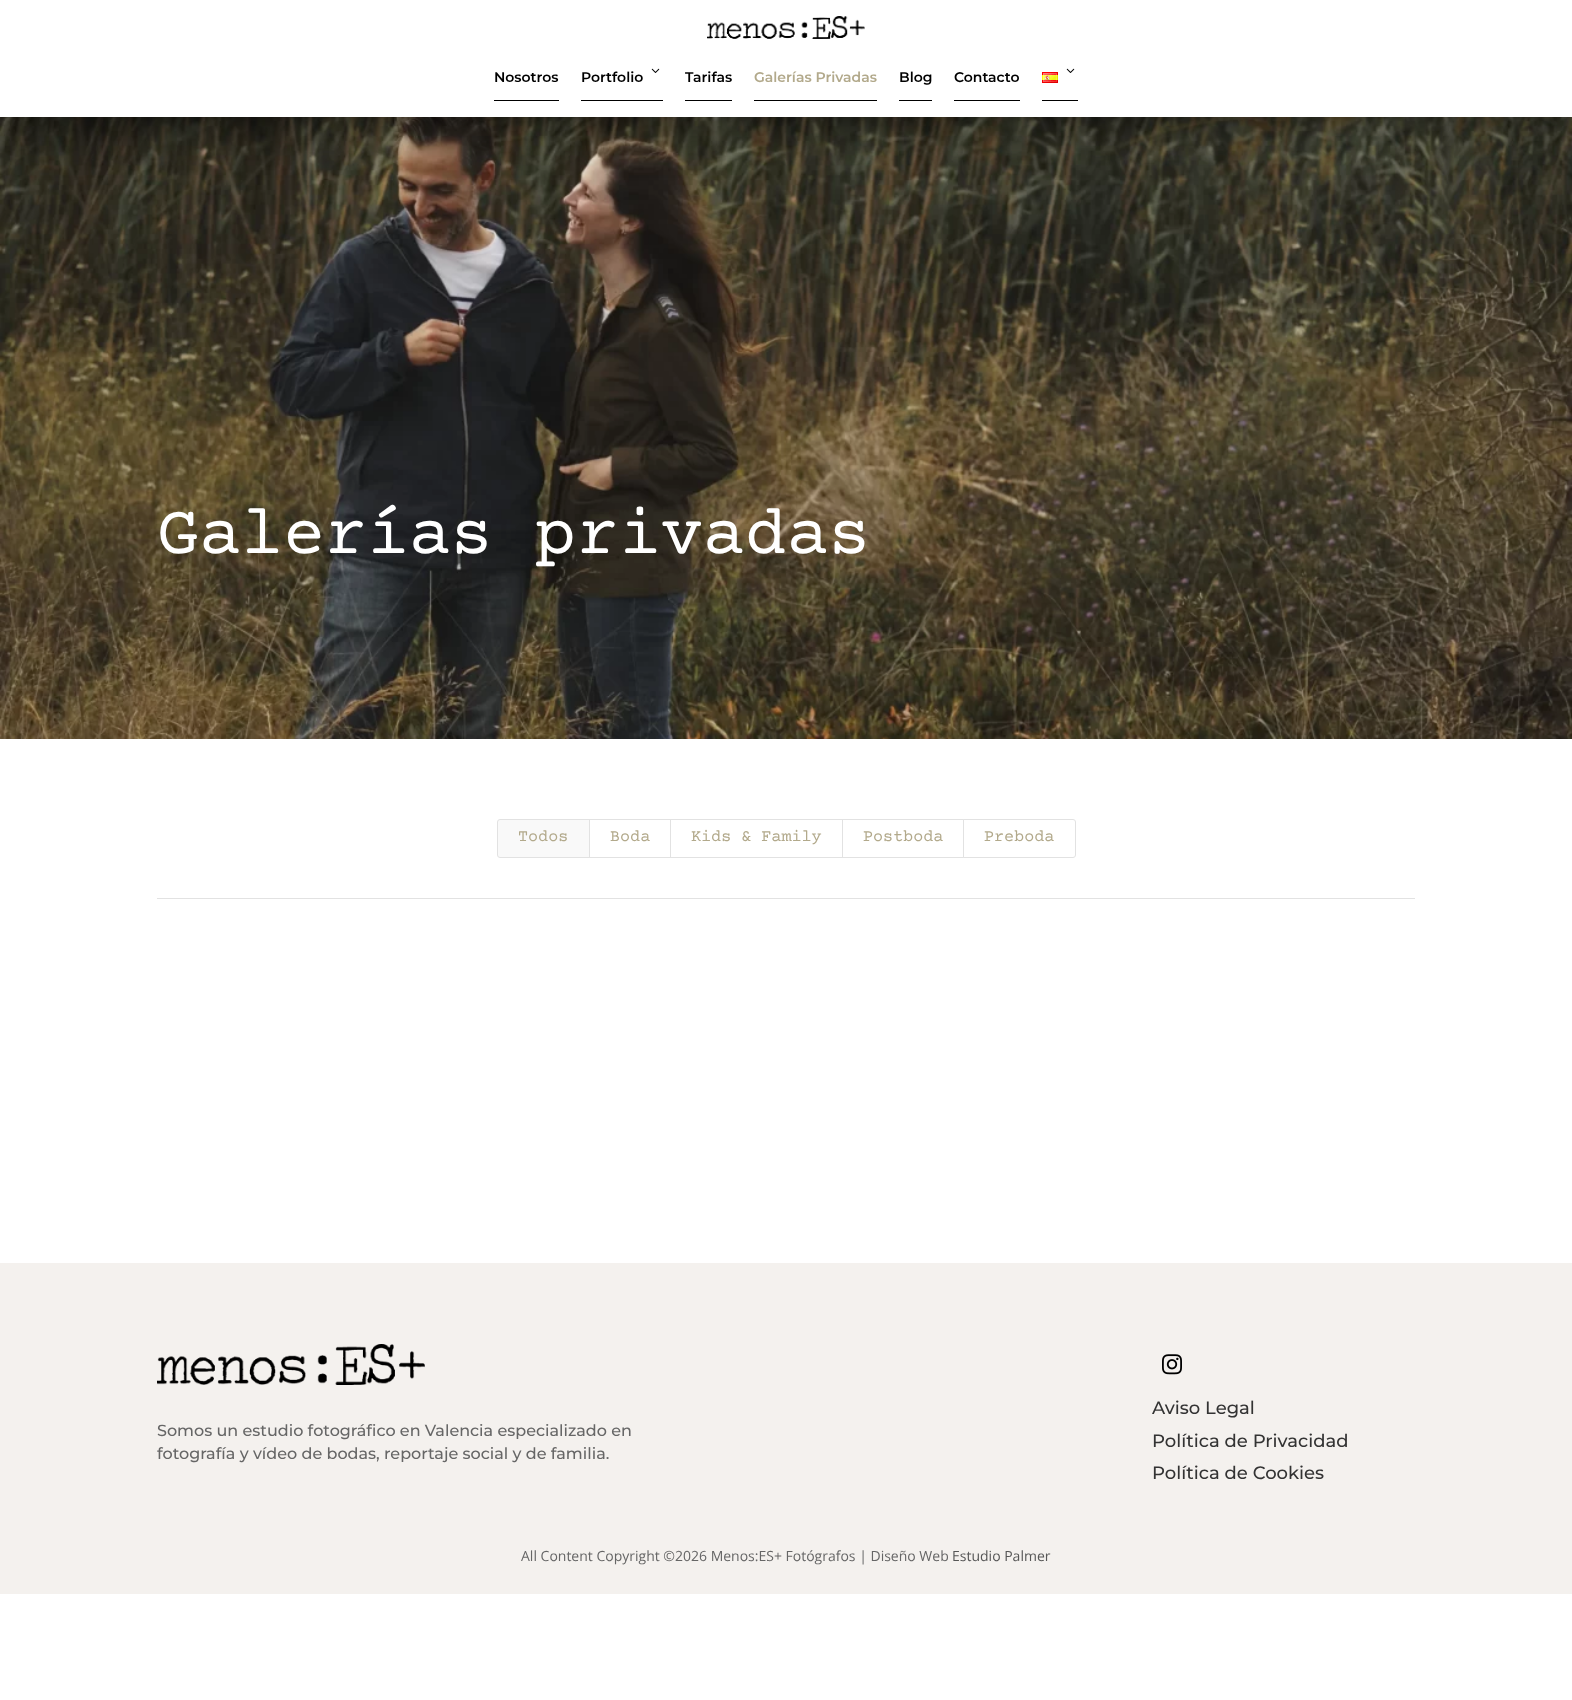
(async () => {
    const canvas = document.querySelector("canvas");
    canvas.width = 1572;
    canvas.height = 1700;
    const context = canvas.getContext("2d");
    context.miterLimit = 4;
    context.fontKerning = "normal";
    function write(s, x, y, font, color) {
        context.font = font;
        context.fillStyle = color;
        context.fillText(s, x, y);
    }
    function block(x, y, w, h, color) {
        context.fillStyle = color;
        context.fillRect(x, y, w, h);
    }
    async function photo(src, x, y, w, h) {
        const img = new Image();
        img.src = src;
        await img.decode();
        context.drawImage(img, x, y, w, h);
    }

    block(0, 0, 1572, 1700, "rgb(255, 255, 255)");
    await photo("media/4.png", 0, 117, 1572, 622);
    context.fillStyle = "rgba(0, 0, 0, 0.8)";
    context.filter = "blur(25px)";
    context.beginPath();
    context.rect(0, 2, 1572, 117);
    context.fill();
    context.filter = "none";
    block(0, 0, 1572, 117, "rgb(255, 255, 255)");
    await photo("media/1.png", 707, 16, 158, 23);
    block(494, 100, 65, 1, "rgb(0, 0, 0)");
    write("Nosotros", 494, 82, "600 14px Montserrat", "rgb(0, 0, 0)");
    block(581, 100, 82, 1, "rgb(0, 0, 0)");
    await photo("media/2.png", 651, 68, 9, 5);
    write("Portfolio", 581, 82, "600 14px Montserrat", "rgb(0, 0, 0)");
    block(685, 100, 47, 1, "rgb(0, 0, 0)");
    write("Tarifas", 685, 82, "600 14px Montserrat", "rgb(0, 0, 0)");
    block(754, 100, 123, 1, "rgb(0, 0, 0)");
    write("Galerías Privadas", 754, 82, "600 14px Montserrat", "rgb(178, 169, 139)");
    block(899, 100, 33, 1, "rgb(0, 0, 0)");
    write("Blog", 899, 82, "600 14px Montserrat", "rgb(0, 0, 0)");
    block(954, 100, 66, 1, "rgb(0, 0, 0)");
    write("Contacto", 954, 82, "600 14px Montserrat", "rgb(0, 0, 0)");
    block(1042, 100, 36, 1, "rgb(0, 0, 0)");
    await photo("media/2.png", 1066, 68, 9, 5);
    await photo("media/3.png", 1042, 72, 16, 11);
    write("Galerías privadas", 157, 553, "70px Courier Prime", "rgb(255, 255, 255)");
    context.fillStyle = "rgb(249, 249, 249)";
    context.beginPath();
    context.roundRect(497.5, 819.5, 92, 38, [2.5, 0, 0, 2.5]);
    context.fill();
    context.strokeStyle = "rgb(226, 226, 226)";
    context.stroke();
    write("Todos", 518, 841, "16.75px Courier Prime", "rgb(178, 169, 139)");
    context.strokeRect(589.5, 819.5, 81, 38);
    write("Boda", 610, 841, "16.75px Courier Prime", "rgb(178, 169, 139)");
    context.strokeRect(670.5, 819.5, 172, 38);
    write("Kids & Family", 691, 841, "16.75px Courier Prime", "rgb(178, 169, 139)");
    context.strokeRect(842.5, 819.5, 121, 38);
    write("Postboda", 863, 841, "16.75px Courier Prime", "rgb(178, 169, 139)");
    context.fillStyle = "rgb(255, 255, 255)";
    context.beginPath();
    context.roundRect(963.5, 819.5, 112, 38, [0, 2.5, 2.5, 0]);
    context.fill();
    context.stroke();
    write("Preboda", 984, 841, "16.75px Courier Prime", "rgb(178, 169, 139)");
    block(157, 898, 1258, 1, "rgb(226, 226, 226)");
    block(0, 1263, 1572, 331, "rgb(244, 241, 238)");
    await photo("media/5.png", 157, 1344, 268, 41);
    write("Somos un estudio fotográfico en Valencia especializado en", 157, 1436, "500 16px Montserrat", "rgb(102, 102, 102)");
    write("fotografía y vídeo de bodas, reportaje social y de familia.", 157, 1459, "500 16px Montserrat", "rgb(102, 102, 102)");
    await photo("media/6.png", 1162, 1354, 20, 21);
    write("Aviso Legal", 1152, 1414, "500 18px Montserrat", "rgb(51, 51, 51)");
    write("Política de Privacidad", 1152, 1447, "500 18px Montserrat", "rgb(51, 51, 51)");
    write("Política de Cookies", 1152, 1479, "500 18px Montserrat", "rgb(51, 51, 51)");
    write("All Content Copyright ©2026 Menos:ES+ Fotógrafos | Diseño Web", 521, 1561, "14px Open Sans", "rgb(102, 102, 102)");
    write("Estudio Palmer", 952, 1561, "14px Open Sans", "rgb(86, 86, 86)");
})();
